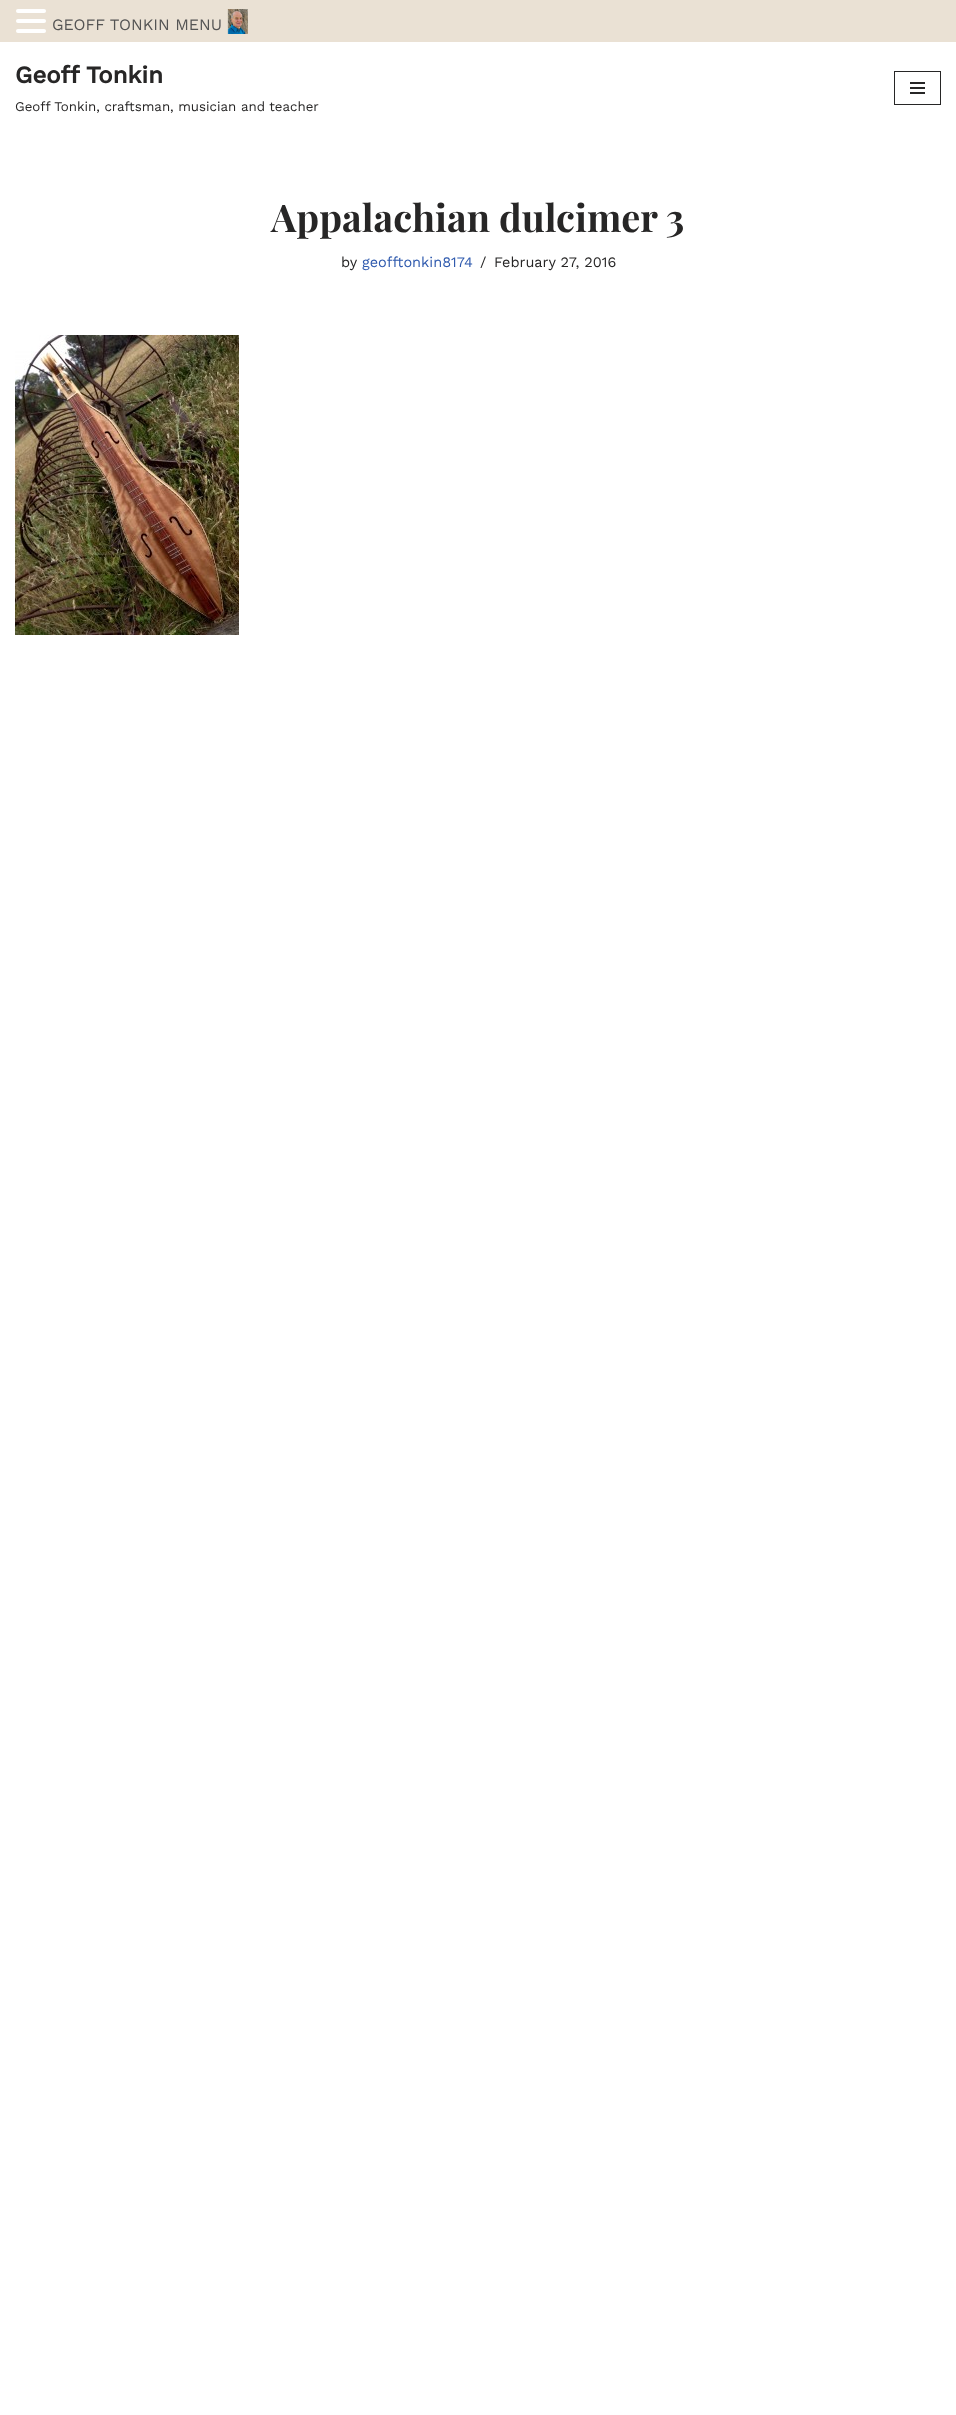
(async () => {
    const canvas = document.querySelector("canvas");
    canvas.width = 956;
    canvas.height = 2415;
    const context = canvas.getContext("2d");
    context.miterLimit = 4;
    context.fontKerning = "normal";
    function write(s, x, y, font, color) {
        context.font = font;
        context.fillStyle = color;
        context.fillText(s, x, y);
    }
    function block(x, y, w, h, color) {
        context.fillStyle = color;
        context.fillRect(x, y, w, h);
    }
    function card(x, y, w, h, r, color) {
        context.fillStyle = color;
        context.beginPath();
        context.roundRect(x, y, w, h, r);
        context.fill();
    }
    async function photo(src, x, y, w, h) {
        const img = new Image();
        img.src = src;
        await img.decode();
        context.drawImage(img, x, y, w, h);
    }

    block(0, 0, 956, 2415, "rgb(255, 255, 255)");
    block(0, 0, 956, 42, "rgb(234, 225, 212)");
    card(16, 9, 30, 4, 2, "rgb(255, 255, 255)");
    card(16, 19, 30, 4, 2, "rgb(255, 255, 255)");
    card(16, 29, 30, 4, 2, "rgb(255, 255, 255)");
    write("GEOFF TONKIN MENU", 52, 30, "16px Work Sans", "rgb(84, 84, 84)");
    await photo("media/1.png", 227, 9, 21, 25);
    write("Geoff Tonkin", 15, 83, "bold 24px Work Sans", "rgb(39, 38, 38)");
    write("Geoff Tonkin, craftsman, musician and teacher", 15, 111, "13.3px Work Sans", "rgb(39, 38, 38)");
    context.strokeStyle = "rgb(39, 38, 38)";
    context.strokeRect(894.5, 71.5, 46, 33);
    block(910, 82, 15, 2, "rgb(39, 38, 38)");
    block(910, 87, 15, 2, "rgb(39, 38, 38)");
    block(910, 92, 15, 2, "rgb(39, 38, 38)");
    write("Appalachian dulcimer 3", 271, 232, "bold 38px Playfair Display", "rgb(39, 38, 38)");
    write("by", 341, 267, "14.5px Work Sans", "rgb(39, 38, 38)");
    write("geofftonkin8174", 362, 267, "14.5px Work Sans", "rgb(47, 90, 174)");
    write("/", 480, 267, "14.5px Work Sans", "rgb(39, 38, 38)");
    write("February 27, 2016", 494, 267, "14.5px Work Sans", "rgb(39, 38, 38)");
    await photo("media/2.png", 15, 335, 224, 300);
})();
